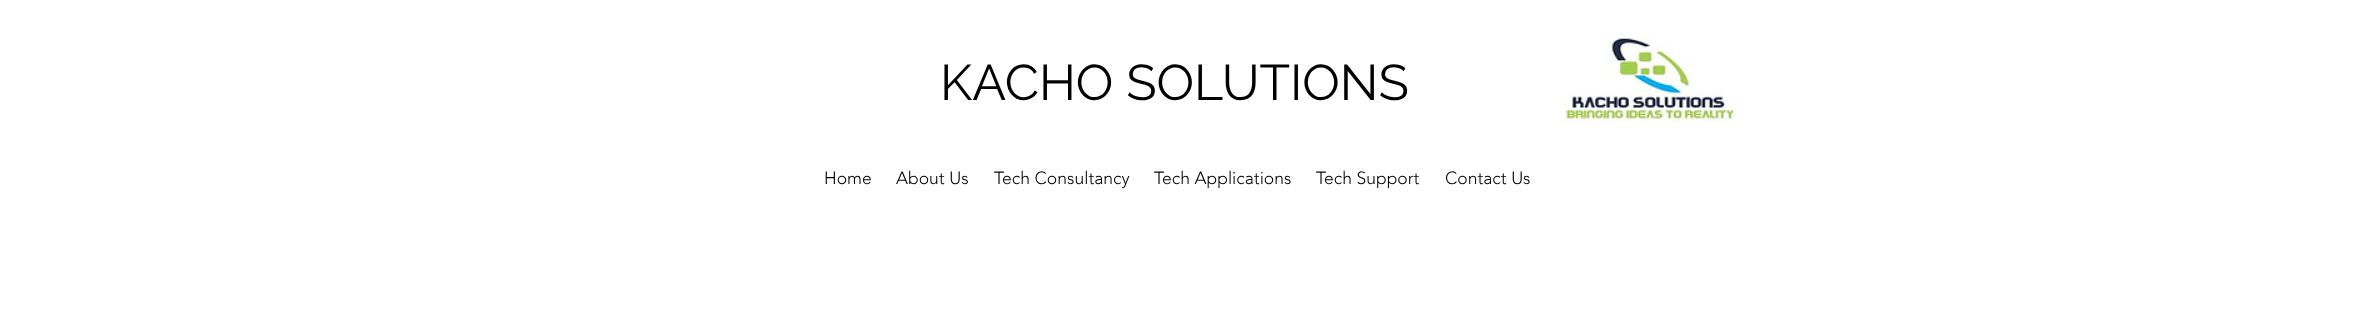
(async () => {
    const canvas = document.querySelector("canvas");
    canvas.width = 2353;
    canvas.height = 334;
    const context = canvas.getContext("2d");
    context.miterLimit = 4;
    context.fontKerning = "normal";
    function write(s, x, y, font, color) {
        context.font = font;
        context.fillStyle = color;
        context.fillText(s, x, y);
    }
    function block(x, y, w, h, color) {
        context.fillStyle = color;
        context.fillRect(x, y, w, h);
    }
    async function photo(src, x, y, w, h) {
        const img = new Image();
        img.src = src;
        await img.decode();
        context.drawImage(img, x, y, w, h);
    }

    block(0, 0, 2353, 334, "rgb(255, 255, 255)");
    write("KACHO SOLUTIONS", 940, 100, "50px Raleway", "rgb(0, 0, 0)");
    await photo("media/1.png", 1564, 38, 171, 85);
    write("Home", 824, 184, "300 17.5px 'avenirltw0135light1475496'", "rgb(0, 0, 0)");
    write("About Us", 896, 184, "300 17.5px 'avenirltw0135light1475496'", "rgb(0, 0, 0)");
    write("Tech Consultancy", 994, 184, "300 17.5px 'avenirltw0135light1475496'", "rgb(0, 0, 0)");
    write("Tech Applications", 1154, 184, "300 17.5px 'avenirltw0135light1475496'", "rgb(0, 0, 0)");
    write("Tech Support", 1316, 184, "300 17.5px 'avenirltw0135light1475496'", "rgb(0, 0, 0)");
    write("Contact Us", 1445, 184, "300 17.5px 'avenirltw0135light1475496'", "rgb(0, 0, 0)");
})();
